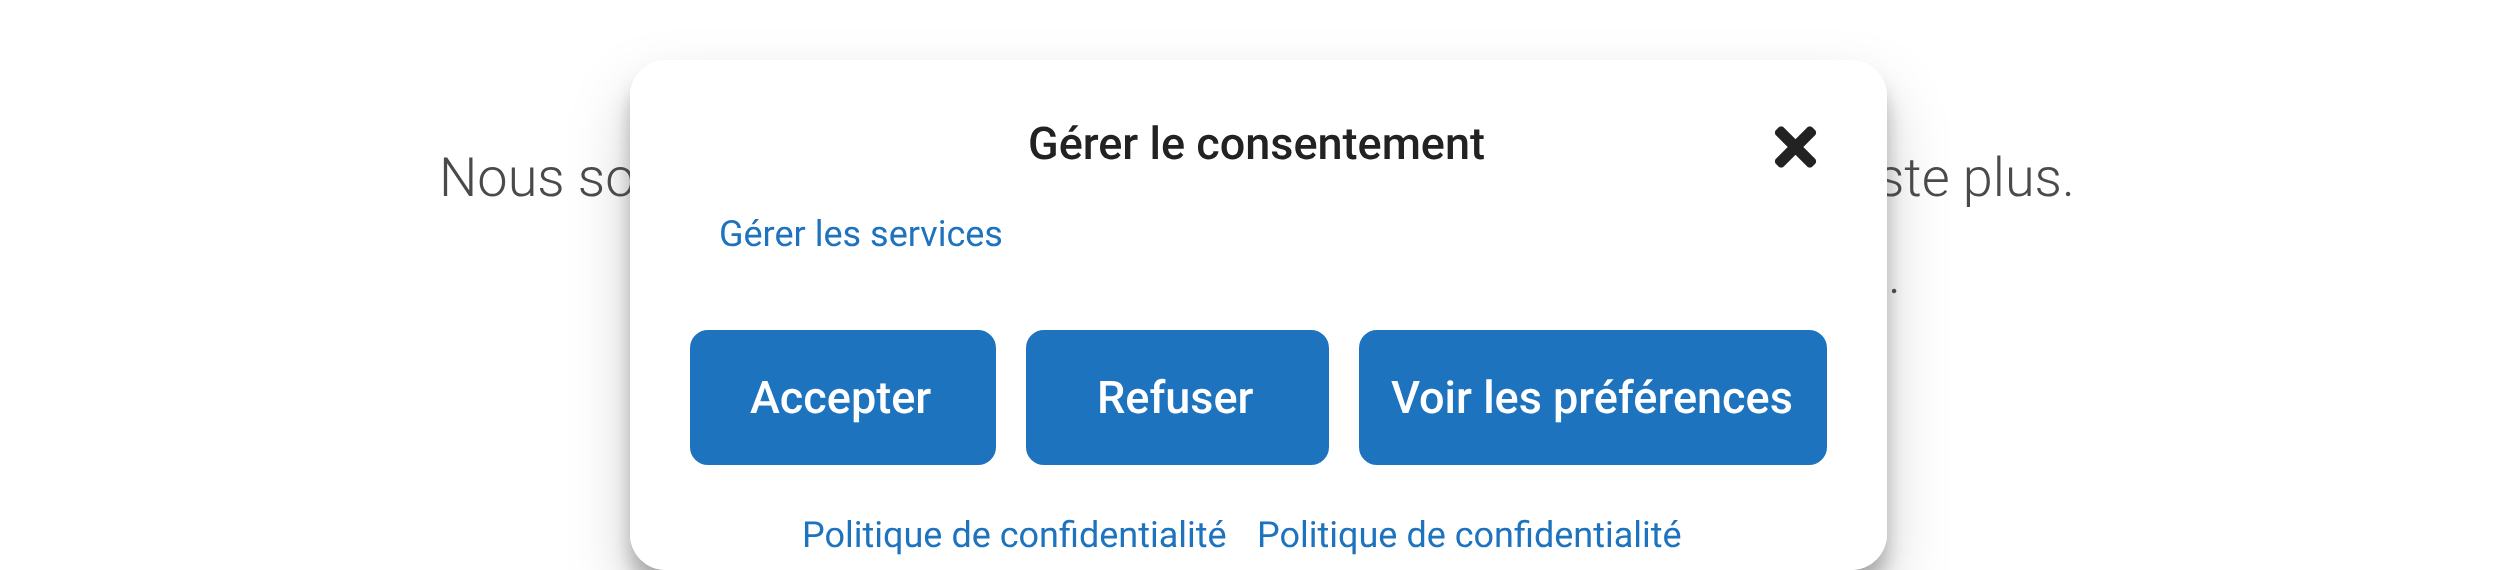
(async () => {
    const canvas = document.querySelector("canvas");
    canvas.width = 2512;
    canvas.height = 570;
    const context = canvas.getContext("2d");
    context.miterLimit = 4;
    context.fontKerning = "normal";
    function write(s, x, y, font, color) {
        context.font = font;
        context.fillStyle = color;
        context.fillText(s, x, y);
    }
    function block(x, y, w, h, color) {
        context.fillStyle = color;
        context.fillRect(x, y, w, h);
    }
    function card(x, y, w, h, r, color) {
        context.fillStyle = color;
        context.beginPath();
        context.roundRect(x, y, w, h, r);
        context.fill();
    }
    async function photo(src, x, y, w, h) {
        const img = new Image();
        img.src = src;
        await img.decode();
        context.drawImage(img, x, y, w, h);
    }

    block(0, 0, 2512, 570, "rgb(255, 255, 255)");
    context.save();
    context.beginPath();
    context.moveTo(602, 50);
    context.lineTo(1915, 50);
    context.lineTo(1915, 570);
    context.lineTo(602, 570);
    context.closePath();
    context.moveTo(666, 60);
    context.lineTo(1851, 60);
    context.bezierCurveTo(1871, 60, 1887, 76, 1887, 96);
    context.lineTo(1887, 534);
    context.bezierCurveTo(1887, 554, 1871, 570, 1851, 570);
    context.lineTo(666, 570);
    context.bezierCurveTo(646, 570, 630, 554, 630, 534);
    context.lineTo(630, 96);
    context.bezierCurveTo(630, 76, 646, 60, 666, 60);
    context.closePath();
    context.clip("evenodd");
    context.fillStyle = "rgba(0, 0, 0, 0.23)";
    context.filter = "blur(9px)";
    context.beginPath();
    context.roundRect(630, 78, 1257, 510, 36);
    context.fill();
    context.filter = "none";
    context.restore();
    context.save();
    context.beginPath();
    context.moveTo(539, 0);
    context.lineTo(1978, 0);
    context.lineTo(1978, 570);
    context.lineTo(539, 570);
    context.closePath();
    context.moveTo(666, 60);
    context.lineTo(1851, 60);
    context.bezierCurveTo(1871, 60, 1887, 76, 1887, 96);
    context.lineTo(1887, 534);
    context.bezierCurveTo(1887, 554, 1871, 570, 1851, 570);
    context.lineTo(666, 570);
    context.bezierCurveTo(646, 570, 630, 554, 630, 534);
    context.lineTo(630, 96);
    context.bezierCurveTo(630, 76, 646, 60, 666, 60);
    context.closePath();
    context.clip("evenodd");
    context.fillStyle = "rgba(0, 0, 0, 0.19)";
    context.filter = "blur(30px)";
    context.beginPath();
    context.roundRect(630, 90, 1257, 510, 36);
    context.fill();
    context.filter = "none";
    context.restore();
    write("Nous so", 439, 196, "300 54px Roboto", "rgb(74, 74, 74)");
    write("ste plus.", 1877, 196, "300 54px Roboto", "rgb(74, 74, 74)");
    card(630, 60, 1257, 510, 36, "rgb(255, 255, 255)");
    write("Gérer le consentement", 1028, 159, "500 45px Roboto", "rgb(34, 34, 34)");
    await photo("media/1.png", 1774, 126, 43, 42);
    write("Gérer les services", 719, 246, "36px Roboto", "rgb(30, 115, 190)");
    context.beginPath();
    context.roundRect(691.5, 331.5, 303, 132, 16.5);
    context.fill();
    context.strokeStyle = "rgb(30, 115, 190)";
    context.lineWidth = 3;
    context.stroke();
    write("Accepter", 750, 413, "500 45px Roboto", "rgb(255, 255, 255)");
    context.fillStyle = "rgb(30, 115, 190)";
    context.beginPath();
    context.roundRect(1027.5, 331.5, 300, 132, 16.5);
    context.fill();
    context.stroke();
    write("Refuser", 1097, 413, "500 45px Roboto", "rgb(255, 255, 255)");
    context.fillStyle = "rgb(30, 115, 190)";
    context.beginPath();
    context.roundRect(1360.5, 331.5, 465, 132, 16.5);
    context.fill();
    context.stroke();
    write("Voir les préférences", 1391, 413, "500 45px Roboto", "rgb(255, 255, 255)");
    write("Politique de confidentialité", 802, 547, "36px Roboto", "rgb(30, 115, 190)");
    write("Politique de confidentialité", 1257, 547, "36px Roboto", "rgb(30, 115, 190)");
    write(".", 1888, 293, "300 54px Roboto", "rgb(74, 74, 74)");
})();
